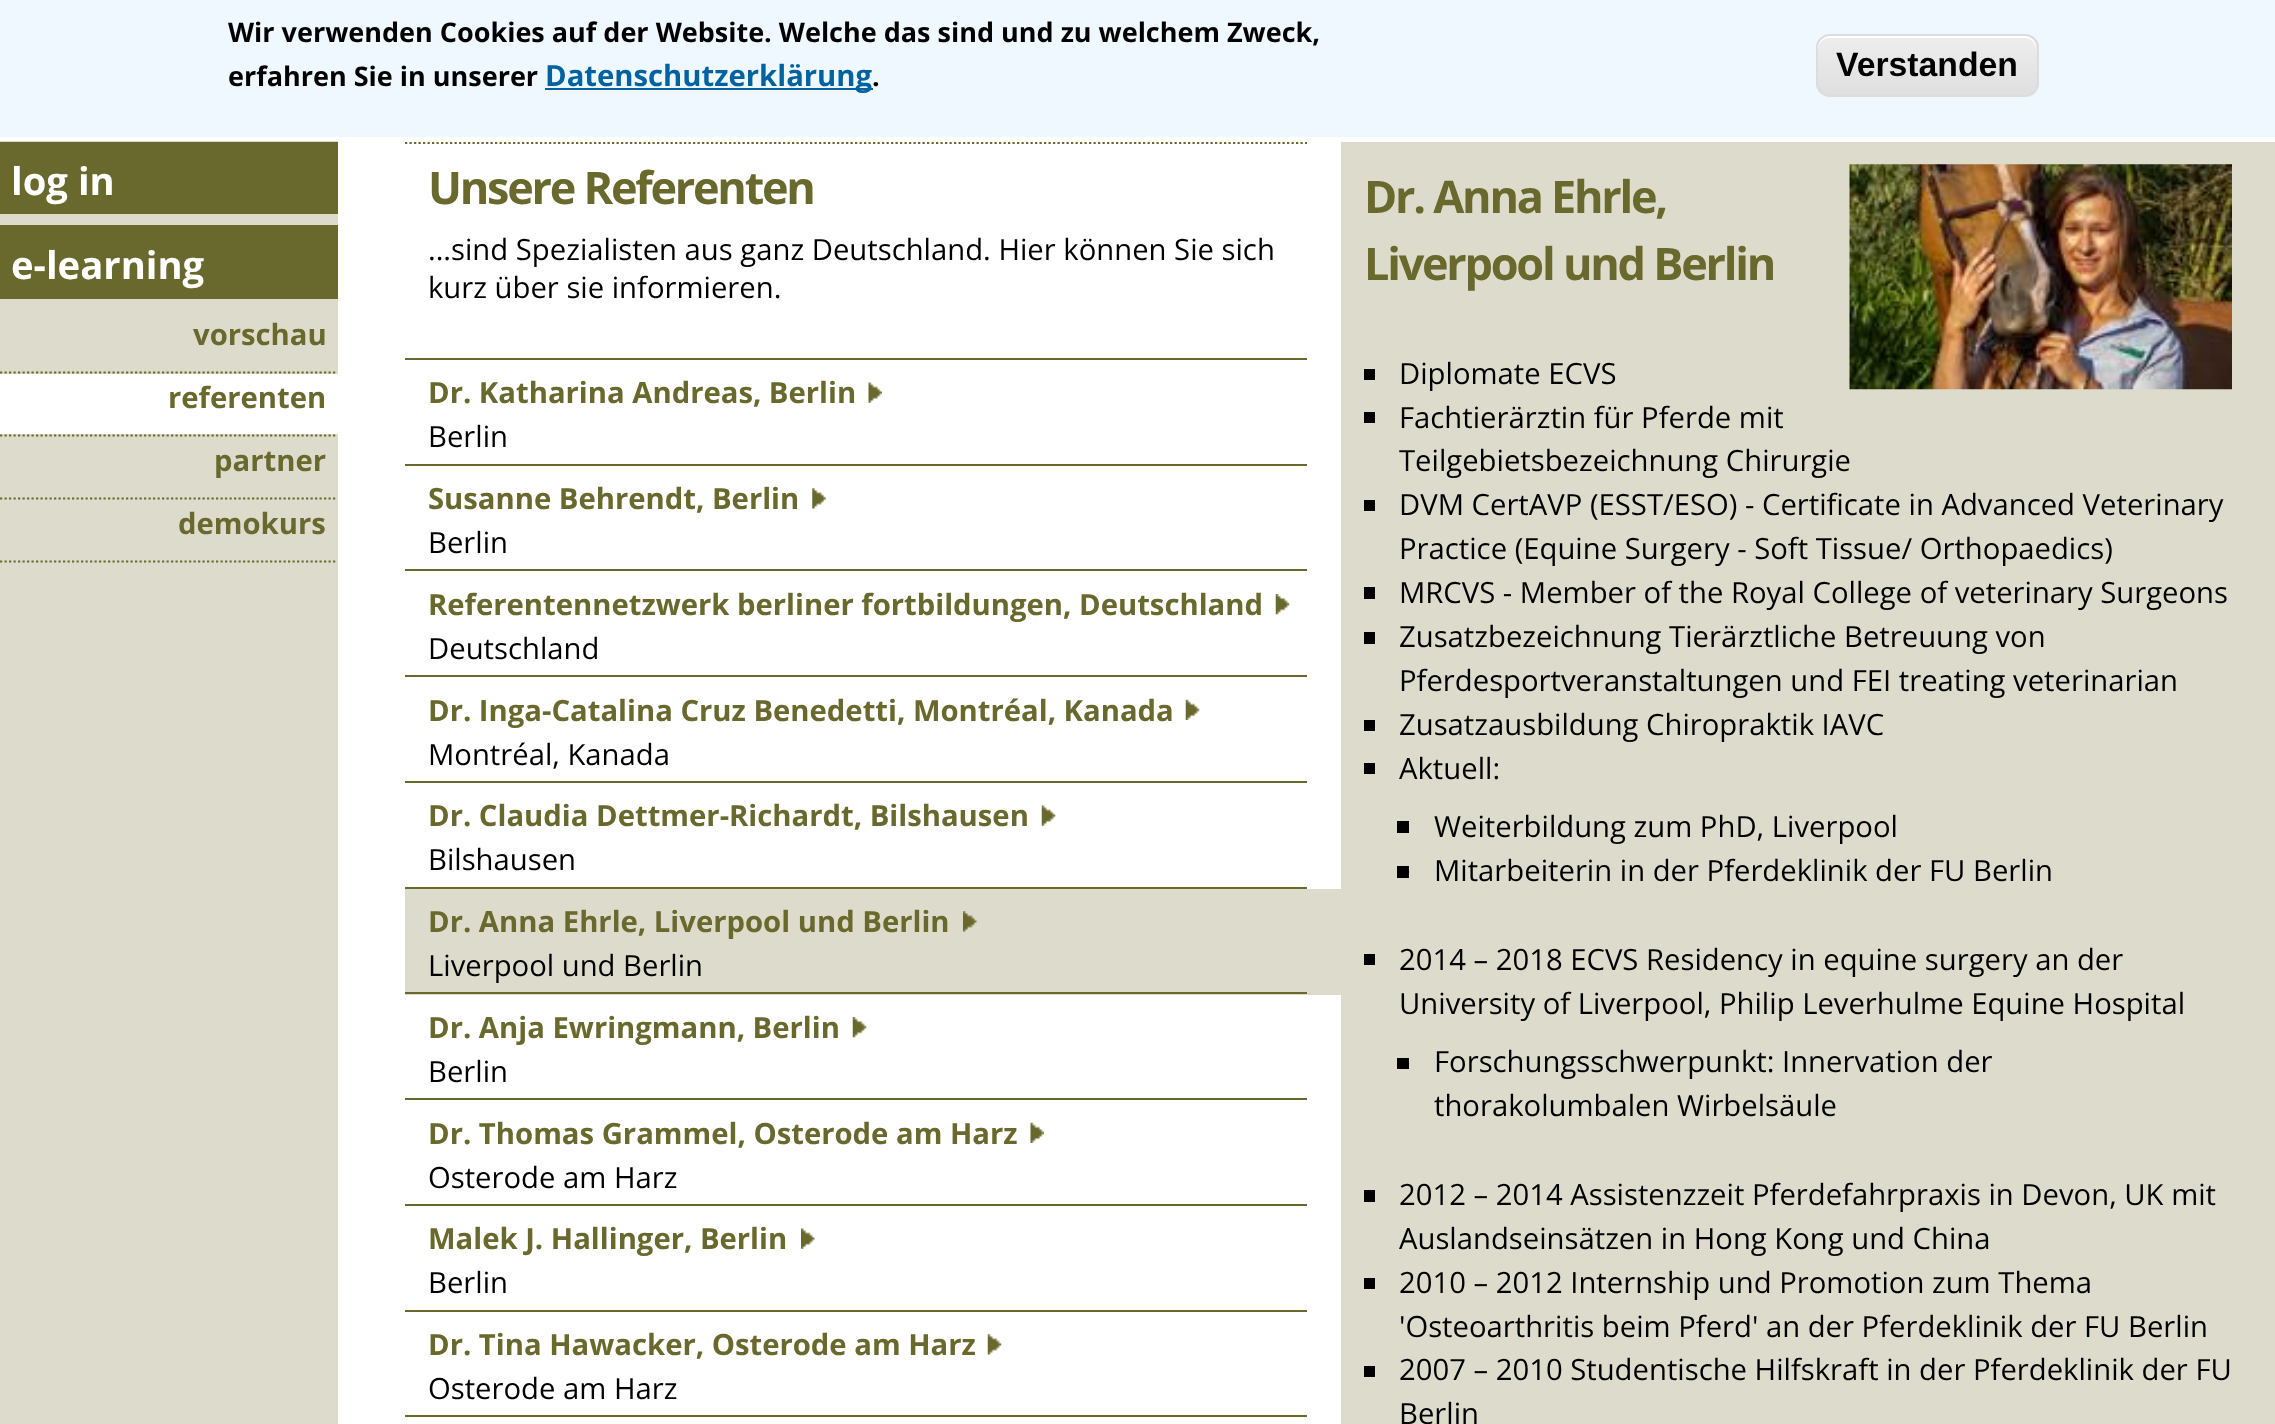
(async () => {
    const canvas = document.querySelector("canvas");
    canvas.width = 2275;
    canvas.height = 1424;
    const context = canvas.getContext("2d");
    context.miterLimit = 4;
    context.fontKerning = "normal";
    function write(s, x, y, font, color) {
        context.font = font;
        context.fillStyle = color;
        context.fillText(s, x, y);
    }
    function block(x, y, w, h, color) {
        context.fillStyle = color;
        context.fillRect(x, y, w, h);
    }
    async function photo(src, x, y, w, h) {
        const img = new Image();
        img.src = src;
        await img.decode();
        context.drawImage(img, x, y, w, h);
    }
    let gradient;

    block(0, 0, 2275, 1424, "rgb(255, 255, 255)");
    block(0, 0, 2275, 137, "rgb(240, 248, 255)");
    write("Wir verwenden Cookies auf der Website. Welche das sind und zu welchem Zweck,", 228, 42, "bold 27px Open Sans", "rgb(0, 0, 0)");
    write("erfahren Sie in unserer", 228, 86, "bold 27px Open Sans", "rgb(0, 0, 0)");
    block(545, 88, 328, 2, "rgb(0, 98, 160)");
    write("Datenschutzerklärung", 545, 86, "bold 29.25px Open Sans", "rgb(0, 98, 160)");
    write(".", 872, 86, "bold 27px Open Sans", "rgb(0, 0, 0)");
    context.save();
    context.beginPath();
    context.roundRect(1816, 34, 223, 63, 14);
    context.clip();
    gradient = context.createLinearGradient(1927, 36, 1927, 95);
    gradient.addColorStop(0.05, "rgb(237, 237, 237)");
    gradient.addColorStop(1, "rgb(223, 223, 223)");
    context.fillStyle = gradient;
    context.fillRect(1816, 36, 223, 59);
    context.restore();
    context.fillStyle = "rgb(255, 255, 255)";
    context.beginPath();
    context.moveTo(1829, 38);
    context.lineTo(2025, 38);
    context.bezierCurveTo(2031, 38, 2036, 43, 2036, 50);
    context.lineTo(2036, 47);
    context.bezierCurveTo(2036, 41, 2031, 36, 2025, 36);
    context.lineTo(1829, 36);
    context.bezierCurveTo(1823, 36, 1818, 41, 1818, 47);
    context.lineTo(1818, 50);
    context.bezierCurveTo(1818, 43, 1823, 38, 1829, 38);
    context.closePath();
    context.fill();
    context.beginPath();
    context.roundRect(1817, 35, 221, 61, 13);
    context.strokeStyle = "rgb(220, 220, 220)";
    context.lineWidth = 2;
    context.stroke();
    write("Verstanden", 1836, 76, "bold 33.75px Liberation Sans", "rgb(0, 0, 0)");
    block(0, 141, 338, 1283, "rgb(221, 220, 204)");
    block(0, 142, 338, 72, "rgb(105, 104, 45)");
    write("log in", 11, 195, "bold 38.25px Open Sans", "rgb(255, 255, 255)");
    block(0, 225, 338, 74, "rgb(105, 104, 45)");
    write("e-learning", 11, 279, "bold 38.25px Open Sans", "rgb(255, 255, 255)");
    context.beginPath();
    context.moveTo(0, 372.5);
    context.lineTo(337.5, 372.5);
    context.strokeStyle = "rgb(105, 104, 45)";
    context.lineWidth = 2.2;
    context.setLineDash([2.25, 2.25]);
    context.stroke();
    write("vorschau", 193, 345, "bold 29.25px Open Sans", "rgb(105, 104, 45)");
    context.beginPath();
    context.moveTo(0, 435.5);
    context.lineTo(337.5, 435.5);
    context.stroke();
    block(0, 374, 338, 60, "rgb(255, 255, 255)");
    write("referenten", 168, 408, "bold 29.25px Open Sans", "rgb(105, 104, 45)");
    context.beginPath();
    context.moveTo(0, 498.5);
    context.lineTo(337.5, 498.5);
    context.stroke();
    write("partner", 214, 471, "bold 29.25px Open Sans", "rgb(105, 104, 45)");
    context.beginPath();
    context.moveTo(0, 561.5);
    context.lineTo(337.5, 561.5);
    context.stroke();
    write("demokurs", 178, 534, "bold 29.25px Open Sans", "rgb(105, 104, 45)");
    context.beginPath();
    context.moveTo(405, 143);
    context.lineTo(1307, 143);
    context.stroke();
    context.letterSpacing = "-2.25px";
    write("Unsere Referenten", 428, 204, "bold 45px Open Sans", "rgb(105, 104, 45)");
    context.letterSpacing = "0px";
    write("...sind Spezialisten aus ganz Deutschland. Hier können Sie sich", 428, 260, "29.25px Open Sans", "rgb(0, 0, 0)");
    write("kurz über sie informieren.", 428, 298, "29.25px Open Sans", "rgb(0, 0, 0)");
    block(405, 358, 902, 2, "rgb(105, 104, 45)");
    block(405, 464, 902, 2, "rgb(105, 104, 45)");
    write("Dr. Katharina Andreas, Berlin", 428, 403, "bold 29.25px Open Sans", "rgb(105, 104, 45)");
    await photo("media/1.png", 868, 382, 14, 21);
    write("Berlin", 428, 447, "29.25px Open Sans", "rgb(0, 0, 0)");
    block(405, 569, 902, 2, "rgb(105, 104, 45)");
    write("Susanne Behrendt, Berlin", 428, 509, "bold 29.25px Open Sans", "rgb(105, 104, 45)");
    await photo("media/2.png", 812, 488, 14, 21);
    write("Berlin", 428, 553, "29.25px Open Sans", "rgb(0, 0, 0)");
    block(405, 675, 902, 2, "rgb(105, 104, 45)");
    write("Referentennetzwerk berliner fortbildungen, Deutschland", 428, 615, "bold 29.25px Open Sans", "rgb(105, 104, 45)");
    await photo("media/3.png", 1275, 594, 15, 21);
    write("Deutschland", 428, 659, "29.25px Open Sans", "rgb(0, 0, 0)");
    block(405, 781, 902, 2, "rgb(105, 104, 45)");
    write("Dr. Inga-Catalina Cruz Benedetti, Montréal, Kanada", 428, 721, "bold 29.25px Open Sans", "rgb(105, 104, 45)");
    await photo("media/4.png", 1185, 699, 15, 21);
    write("Montréal, Kanada", 428, 765, "29.25px Open Sans", "rgb(0, 0, 0)");
    block(405, 887, 902, 2, "rgb(105, 104, 45)");
    write("Dr. Claudia Dettmer-Richardt, Bilshausen", 428, 826, "bold 29.25px Open Sans", "rgb(105, 104, 45)");
    await photo("media/5.png", 1041, 805, 15, 21);
    write("Bilshausen", 428, 870, "29.25px Open Sans", "rgb(0, 0, 0)");
    block(405, 889, 936, 106, "rgb(221, 220, 204)");
    block(405, 992, 902, 2, "rgb(105, 104, 45)");
    write("Dr. Anna Ehrle, Liverpool und Berlin", 428, 932, "bold 29.25px Open Sans", "rgb(105, 104, 45)");
    await photo("media/6.png", 963, 911, 14, 21);
    write("Liverpool und Berlin", 428, 976, "29.25px Open Sans", "rgb(0, 0, 0)");
    block(405, 1098, 902, 2, "rgb(105, 104, 45)");
    write("Dr. Anja Ewringmann, Berlin", 428, 1038, "bold 29.25px Open Sans", "rgb(105, 104, 45)");
    await photo("media/7.png", 852, 1017, 15, 21);
    write("Berlin", 428, 1082, "29.25px Open Sans", "rgb(0, 0, 0)");
    block(405, 1204, 902, 2, "rgb(105, 104, 45)");
    write("Dr. Thomas Grammel, Osterode am Harz", 428, 1144, "bold 29.25px Open Sans", "rgb(105, 104, 45)");
    await photo("media/8.png", 1030, 1122, 14, 21);
    write("Osterode am Harz", 428, 1188, "29.25px Open Sans", "rgb(0, 0, 0)");
    block(405, 1310, 902, 2, "rgb(105, 104, 45)");
    write("Malek J. Hallinger, Berlin", 428, 1249, "bold 29.25px Open Sans", "rgb(105, 104, 45)");
    await photo("media/9.png", 801, 1228, 14, 21);
    write("Berlin", 428, 1293, "29.25px Open Sans", "rgb(0, 0, 0)");
    block(405, 1415, 902, 2, "rgb(105, 104, 45)");
    write("Dr. Tina Hawacker, Osterode am Harz", 428, 1355, "bold 29.25px Open Sans", "rgb(105, 104, 45)");
    await photo("media/10.png", 987, 1334, 15, 21);
    write("Osterode am Harz", 428, 1399, "29.25px Open Sans", "rgb(0, 0, 0)");
    block(1341, 142, 934, 1282, "rgb(221, 220, 204)");
    context.letterSpacing = "-2.25px";
    write("Dr. Anna Ehrle,", 1364, 213, "bold 45px Open Sans", "rgb(105, 104, 45)");
    write("Liverpool und Berlin", 1364, 280, "bold 45px Open Sans", "rgb(105, 104, 45)");
    await photo("media/11.png", 1849, 164, 383, 226);
    block(1364, 369, 11, 11, "rgb(0, 0, 0)");
    context.letterSpacing = "0px";
    write("Diplomate ECVS", 1399, 384, "29.25px Open Sans", "rgb(0, 0, 0)");
    block(1364, 412, 11, 11, "rgb(0, 0, 0)");
    write("Fachtierärztin für Pferde mit", 1399, 428, "29.25px Open Sans", "rgb(0, 0, 0)");
    write("Teilgebietsbezeichnung Chirurgie", 1399, 471, "29.25px Open Sans", "rgb(0, 0, 0)");
    block(1364, 500, 11, 11, "rgb(0, 0, 0)");
    write("DVM CertAVP (ESST/ESO) - Certificate in Advanced Veterinary", 1399, 515, "29.25px Open Sans", "rgb(0, 0, 0)");
    write("Practice (Equine Surgery - Soft Tissue/ Orthopaedics)", 1399, 559, "29.25px Open Sans", "rgb(0, 0, 0)");
    block(1364, 587, 11, 12, "rgb(0, 0, 0)");
    write("MRCVS - Member of the Royal College of veterinary Surgeons", 1399, 603, "29.25px Open Sans", "rgb(0, 0, 0)");
    block(1364, 632, 11, 12, "rgb(0, 0, 0)");
    write("Zusatzbezeichnung Tierärztliche Betreuung von", 1399, 647, "29.25px Open Sans", "rgb(0, 0, 0)");
    write("Pferdesportveranstaltungen und FEI treating veterinarian", 1399, 691, "29.25px Open Sans", "rgb(0, 0, 0)");
    block(1364, 720, 11, 11, "rgb(0, 0, 0)");
    write("Zusatzausbildung Chiropraktik IAVC", 1399, 735, "29.25px Open Sans", "rgb(0, 0, 0)");
    block(1364, 763, 11, 11, "rgb(0, 0, 0)");
    write("Aktuell:", 1399, 779, "29.25px Open Sans", "rgb(0, 0, 0)");
    block(1397, 821, 12, 12, "rgb(0, 0, 0)");
    write("Weiterbildung zum PhD, Liverpool", 1434, 837, "29.25px Open Sans", "rgb(0, 0, 0)");
    block(1397, 866, 12, 12, "rgb(0, 0, 0)");
    write("Mitarbeiterin in der Pferdeklinik der FU Berlin", 1434, 881, "29.25px Open Sans", "rgb(0, 0, 0)");
    block(1364, 954, 11, 11, "rgb(0, 0, 0)");
    write("2014 – 2018 ECVS Residency in equine surgery an der", 1399, 970, "29.25px Open Sans", "rgb(0, 0, 0)");
    write("University of Liverpool, Philip Leverhulme Equine Hospital", 1399, 1014, "29.25px Open Sans", "rgb(0, 0, 0)");
    block(1397, 1058, 12, 11, "rgb(0, 0, 0)");
    write("Forschungsschwerpunkt: Innervation der", 1434, 1072, "29.25px Open Sans", "rgb(0, 0, 0)");
    write("thorakolumbalen Wirbelsäule", 1434, 1116, "29.25px Open Sans", "rgb(0, 0, 0)");
    block(1364, 1190, 11, 12, "rgb(0, 0, 0)");
    write("2012 – 2014 Assistenzzeit Pferdefahrpraxis in Devon, UK mit", 1399, 1205, "29.25px Open Sans", "rgb(0, 0, 0)");
    write("Auslandseinsätzen in Hong Kong und China", 1399, 1249, "29.25px Open Sans", "rgb(0, 0, 0)");
    block(1364, 1278, 11, 11, "rgb(0, 0, 0)");
    write("2010 – 2012 Internship und Promotion zum Thema", 1399, 1293, "29.25px Open Sans", "rgb(0, 0, 0)");
    write("'Osteoarthritis beim Pferd' an der Pferdeklinik der FU Berlin", 1399, 1337, "29.25px Open Sans", "rgb(0, 0, 0)");
    block(1364, 1366, 11, 11, "rgb(0, 0, 0)");
    write("2007 – 2010 Studentische Hilfskraft in der Pferdeklinik der FU", 1399, 1380, "29.25px Open Sans", "rgb(0, 0, 0)");
    write("Berlin", 1399, 1424, "29.25px Open Sans", "rgb(0, 0, 0)");
})();
